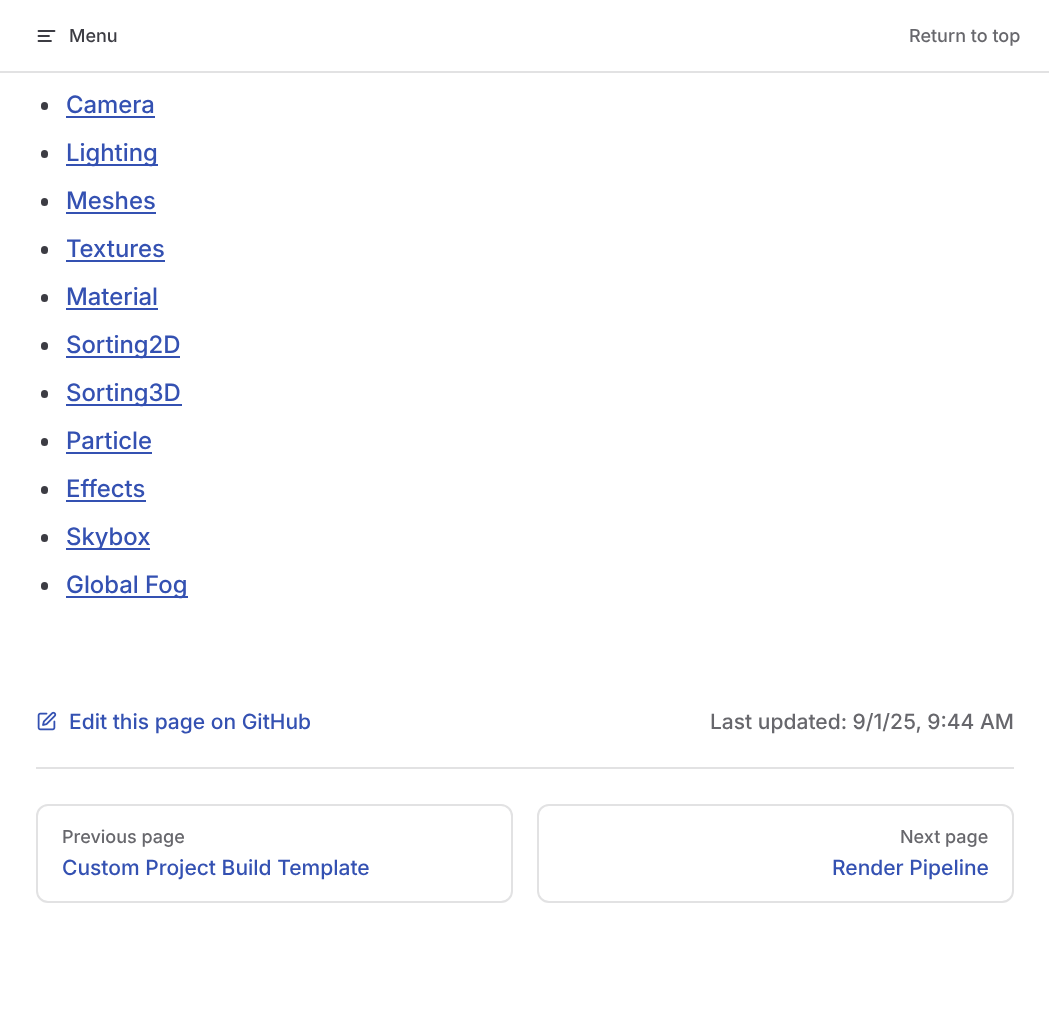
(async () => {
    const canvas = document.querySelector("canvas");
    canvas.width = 1049;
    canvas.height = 1019;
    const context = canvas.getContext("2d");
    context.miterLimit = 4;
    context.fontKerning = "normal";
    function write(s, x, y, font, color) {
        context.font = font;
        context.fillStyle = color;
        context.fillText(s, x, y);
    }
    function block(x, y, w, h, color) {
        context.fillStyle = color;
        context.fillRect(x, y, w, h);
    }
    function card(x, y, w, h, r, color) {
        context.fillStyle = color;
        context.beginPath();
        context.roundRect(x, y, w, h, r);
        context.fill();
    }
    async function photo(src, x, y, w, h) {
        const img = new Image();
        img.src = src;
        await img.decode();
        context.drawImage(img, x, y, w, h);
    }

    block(0, 0, 1049, 1019, "rgb(255, 255, 255)");
    block(0, 71, 1049, 2, "rgb(226, 226, 227)");
    context.beginPath();
    context.moveTo(54.5, 31);
    context.lineTo(38.5, 31);
    context.moveTo(49, 36);
    context.lineTo(38.5, 36);
    context.moveTo(51, 41);
    context.lineTo(38.5, 41);
    context.strokeStyle = "rgb(60, 60, 67)";
    context.lineWidth = 1.8;
    context.lineCap = "round";
    context.lineJoin = "round";
    context.stroke();
    write("Menu", 69, 42, "500 18px Inter", "rgb(60, 60, 67)");
    write("Return to top", 909, 42, "500 18px Inter", "rgb(103, 103, 108)");
    card(41, 102, 7, 8, 3.5, "rgb(60, 60, 67)");
    write("Camera", 66, 113, "500 24px 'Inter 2'", "rgb(52, 81, 178)");
    block(66, 116, 89, 2, "rgb(52, 81, 178)");
    card(41, 150, 7, 8, 3.5, "rgb(60, 60, 67)");
    block(66, 164, 92, 2, "rgb(52, 81, 178)");
    write("Lighting", 66, 161, "500 24px 'Inter 2'", "rgb(52, 81, 178)");
    card(41, 198, 7, 8, 3.5, "rgb(60, 60, 67)");
    write("Meshes", 66, 209, "500 24px 'Inter 2'", "rgb(52, 81, 178)");
    block(66, 212, 90, 2, "rgb(52, 81, 178)");
    card(41, 246, 7, 8, 3.5, "rgb(60, 60, 67)");
    write("Textures", 66, 257, "500 24px 'Inter 2'", "rgb(52, 81, 178)");
    block(66, 260, 99, 2, "rgb(52, 81, 178)");
    card(41, 294, 7, 8, 3.5, "rgb(60, 60, 67)");
    write("Material", 66, 305, "500 24px 'Inter 2'", "rgb(52, 81, 178)");
    block(66, 308, 92, 2, "rgb(52, 81, 178)");
    card(41, 342, 7, 8, 3.5, "rgb(60, 60, 67)");
    block(66, 356, 114, 2, "rgb(52, 81, 178)");
    write("Sorting2D", 66, 353, "500 24px 'Inter 2'", "rgb(52, 81, 178)");
    card(41, 390, 7, 8, 3.5, "rgb(60, 60, 67)");
    block(66, 404, 116, 2, "rgb(52, 81, 178)");
    write("Sorting3D", 66, 401, "500 24px 'Inter 2'", "rgb(52, 81, 178)");
    card(41, 438, 7, 8, 3.5, "rgb(60, 60, 67)");
    write("Particle", 66, 449, "500 24px 'Inter 2'", "rgb(52, 81, 178)");
    block(66, 452, 86, 2, "rgb(52, 81, 178)");
    card(41, 486, 7, 8, 3.5, "rgb(60, 60, 67)");
    write("Effects", 66, 497, "500 24px 'Inter 2'", "rgb(52, 81, 178)");
    block(66, 500, 80, 2, "rgb(52, 81, 178)");
    card(41, 534, 7, 8, 3.5, "rgb(60, 60, 67)");
    block(66, 548, 84, 2, "rgb(52, 81, 178)");
    write("Skybox", 66, 545, "500 24px 'Inter 2'", "rgb(52, 81, 178)");
    card(41, 582, 7, 8, 3.5, "rgb(60, 60, 67)");
    block(66, 596, 122, 2, "rgb(52, 81, 178)");
    write("Global Fog", 66, 593, "500 24px 'Inter 2'", "rgb(52, 81, 178)");
    await photo("media/1.png", 37, 711, 20, 20);
    write("Edit this page on GitHub", 69, 729, "500 21px Inter", "rgb(52, 81, 178)");
    write("Last updated: 9/1/25, 9:44 AM", 710, 729, "500 21px Inter", "rgb(103, 103, 108)");
    block(36, 767, 978, 2, "rgb(226, 226, 227)");
    context.beginPath();
    context.roundRect(37, 805, 475, 97, 11);
    context.strokeStyle = "rgb(226, 226, 227)";
    context.lineWidth = 2;
    context.lineJoin = "miter";
    context.stroke();
    write("Previous page", 62, 843, "500 18px Inter", "rgb(103, 103, 108)");
    write("Custom Project Build Template", 62, 875, "500 21px Inter", "rgb(52, 81, 178)");
    context.beginPath();
    context.roundRect(538, 805, 475, 97, 11);
    context.stroke();
    write("Next page", 900, 843, "500 18px Inter", "rgb(103, 103, 108)");
    write("Render Pipeline", 832, 875, "500 21px Inter", "rgb(52, 81, 178)");
})();
